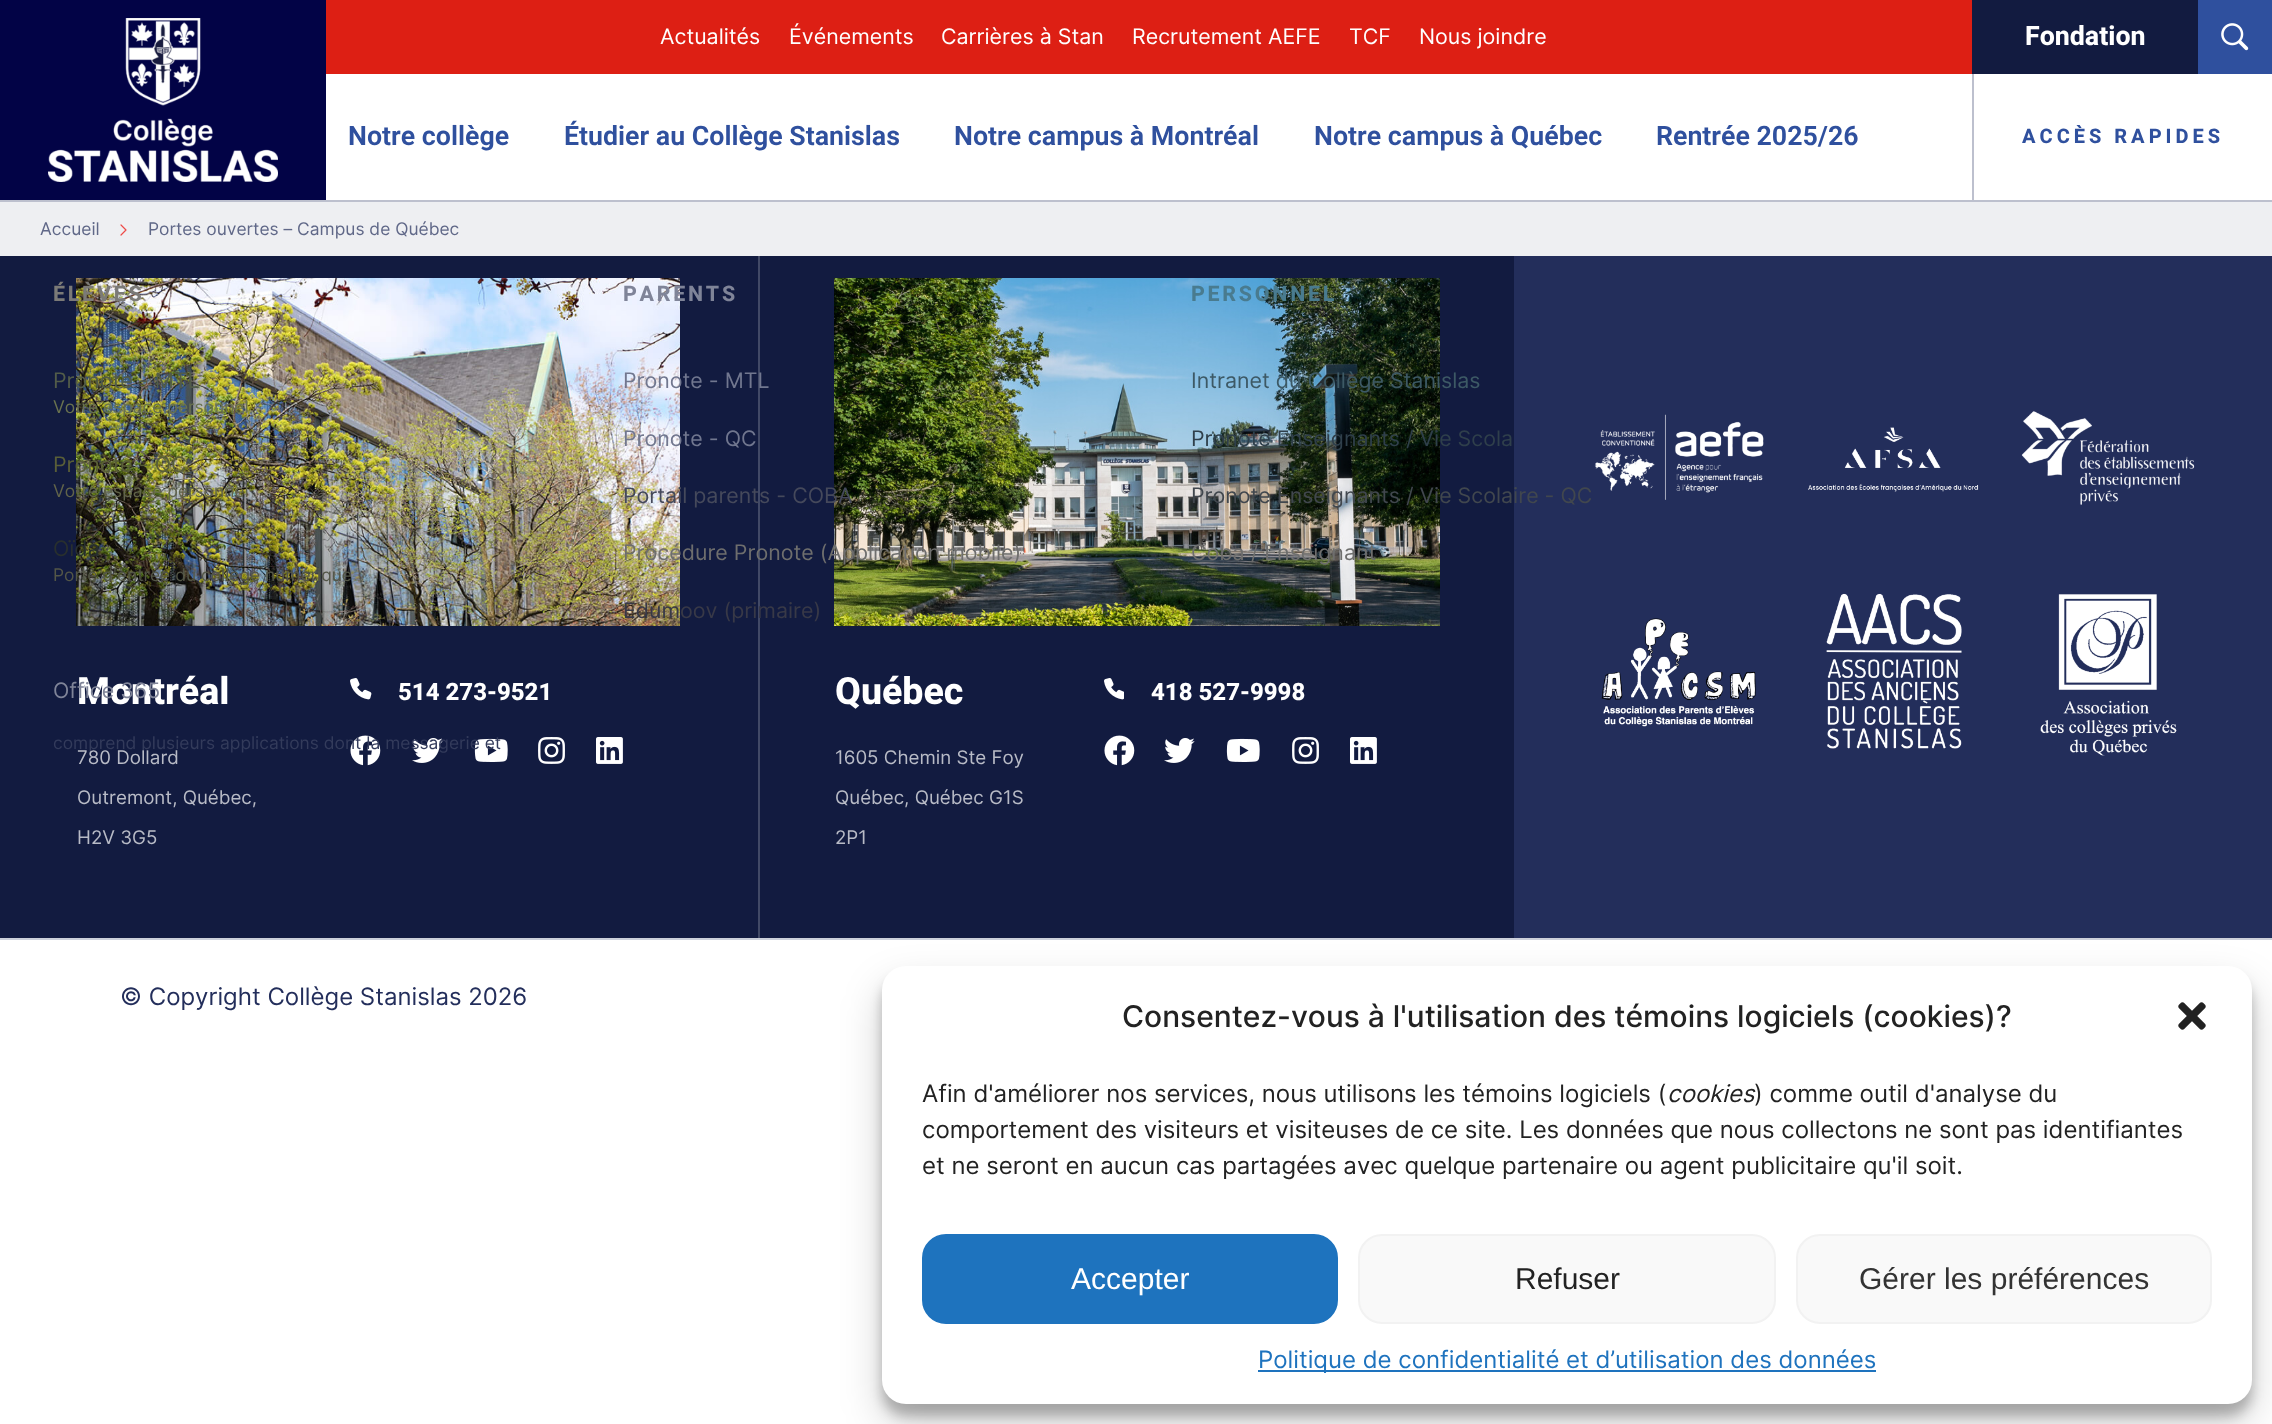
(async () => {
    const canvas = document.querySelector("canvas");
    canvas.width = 2272;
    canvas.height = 1424;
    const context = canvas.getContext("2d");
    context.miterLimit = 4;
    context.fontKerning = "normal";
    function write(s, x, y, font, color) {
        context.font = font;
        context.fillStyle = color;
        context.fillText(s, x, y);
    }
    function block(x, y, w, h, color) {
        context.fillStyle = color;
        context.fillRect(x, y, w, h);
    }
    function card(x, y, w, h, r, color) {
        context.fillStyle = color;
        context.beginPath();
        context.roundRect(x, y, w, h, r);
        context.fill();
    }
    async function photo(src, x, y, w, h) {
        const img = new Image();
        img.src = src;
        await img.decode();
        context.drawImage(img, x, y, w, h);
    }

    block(0, 0, 2272, 1424, "rgb(255, 255, 255)");
    block(0, 200, 2272, 2, "rgb(189, 192, 206)");
    block(0, 0, 326, 200, "rgb(2, 3, 70)");
    await photo("media/1.png", 48, 18, 230, 164);
    block(326, 0, 1646, 74, "rgb(221, 31, 20)");
    write("Actualités", 660, 44, "21.4px Inter", "rgb(255, 255, 255)");
    write("Événements", 789, 44, "21.4px Inter", "rgb(255, 255, 255)");
    write("Carrières à Stan", 941, 44, "21.4px Inter", "rgb(255, 255, 255)");
    write("Recrutement AEFE", 1132, 44, "21.4px Inter", "rgb(255, 255, 255)");
    write("TCF", 1349, 44, "21.4px Inter", "rgb(255, 255, 255)");
    write("Nous joindre", 1419, 44, "21.4px Inter", "rgb(255, 255, 255)");
    block(1972, 0, 226, 74, "rgb(18, 27, 64)");
    write("Fondation", 2025, 45, "bold 26.75px Heebo", "rgb(255, 255, 255)");
    block(2198, 0, 74, 74, "rgb(47, 80, 158)");
    await photo("media/2.png", 2221, 23, 28, 28);
    write("Notre collège", 348, 145, "600 26.75px Heebo", "rgb(47, 80, 158)");
    write("Étudier au Collège Stanislas", 564, 145, "600 26.75px Heebo", "rgb(47, 80, 158)");
    write("Notre campus à Montréal", 954, 145, "600 26.75px Heebo", "rgb(47, 80, 158)");
    write("Notre campus à Québec", 1314, 145, "600 26.75px Heebo", "rgb(47, 80, 158)");
    write("Rentrée 2025/26", 1656, 145, "600 26.75px Heebo", "rgb(47, 80, 158)");
    block(1972, 74, 2, 126, "rgb(189, 192, 206)");
    context.letterSpacing = "4px";
    write("ACCÈS RAPIDES", 2022, 143, "bold 20px Heebo", "rgb(47, 80, 158)");
    block(0, 256, 1514, 682, "rgb(18, 27, 64)");
    await photo("media/3.png", 76, 278, 604, 348);
    context.letterSpacing = "2.75px";
    write("ÉLÈVES", 53, 301, "bold 21.4px Heebo", "rgb(123, 122, 119)");
    context.letterSpacing = "0px";
    write("Pronote - MTL", 53, 388, "21.4px Inter", "rgb(82, 92, 73)");
    write("Votre espace personnel", 53, 413, "17.4px Inter", "rgb(105, 114, 79)");
    write("Pronote - QC", 53, 472, "21.4px Inter", "rgb(89, 94, 56)");
    write("Votre espace personnel", 53, 497, "17.4px Inter", "rgb(97, 100, 74)");
    write("Oïda", 53, 556, "21.4px Inter", "rgb(40, 47, 46)");
    write("Porte d'entrée du collège numérique", 53, 581, "17.4px Inter", "rgb(83, 86, 71)");
    write("Montréal", 77, 704, "800 37.5px Heebo", "rgb(255, 255, 255)");
    write("Office 365", 53, 698, "21.4px Inter", "rgb(127, 132, 152)");
    await photo("media/5.png", 350, 735, 31, 31);
    await photo("media/6.png", 412, 738, 31, 25);
    await photo("media/7.png", 474, 738, 34, 24);
    write("comprend plusieurs applications dont la messagerie et", 53, 749, "17.4px Inter", "rgb(51, 59, 91)");
    context.letterSpacing = "2.75px";
    write("PARENTS", 623, 301, "bold 21.4px Heebo", "rgb(127, 132, 152)");
    block(758, 256, 2, 682, "rgb(65, 73, 102)");
    context.letterSpacing = "0px";
    write("Pronote - MTL", 623, 388, "21.4px Inter", "rgb(113, 119, 143)");
    write("Pronote - QC", 623, 446, "21.4px Inter", "rgb(113, 119, 143)");
    await photo("media/10.png", 834, 278, 606, 348);
    write("Portail parents - COBA", 623, 503, "21.4px Inter", "rgb(69, 73, 91)");
    write("Procédure Pronote (Application mobile)", 623, 560, "21.4px Inter", "rgb(110, 110, 109)");
    write("Edumoov (primaire)", 623, 618, "21.4px Inter", "rgb(56, 57, 71)");
    context.letterSpacing = "2.75px";
    write("PERSONNEL", 1191, 301, "bold 21.4px Heebo", "rgb(73, 123, 143)");
    context.letterSpacing = "0px";
    write("Intranet du Collège Stanislas", 1191, 388, "21.4px Inter", "rgb(61, 89, 101)");
    write("Pronote Enseignants / Vie Scola", 1191, 446, "21.4px Inter", "rgb(47, 63, 75)");
    block(1514, 256, 758, 682, "rgb(35, 46, 91)");
    write("Pronote Enseignants / Vie Scolaire - QC", 1191, 503, "21.4px Inter", "rgb(65, 71, 78)");
    write("Coba / Enseignant", 1191, 560, "21.4px Inter", "rgb(110, 110, 109)");
    block(0, 202, 2272, 54, "rgb(238, 239, 242)");
    write("Accueil", 40, 235, "17.4px Inter", "rgb(96, 104, 136)");
    context.beginPath();
    context.moveTo(121, 225);
    context.lineTo(126, 230);
    context.lineTo(121, 235);
    context.strokeStyle = "rgb(237, 75, 72)";
    context.lineWidth = 1.2;
    context.lineCap = "round";
    context.lineJoin = "round";
    context.stroke();
    write("Portes ouvertes – Campus de Québec", 148, 235, "17.4px Inter", "rgb(96, 104, 136)");
    write("780 Dollard", 77, 764, "18.75px Inter", "rgb(184, 187, 198)");
    write("Outremont, Québec,", 77, 804, "18.75px Inter", "rgb(184, 187, 198)");
    write("H2V 3G5", 77, 844, "18.75px Inter", "rgb(184, 187, 198)");
    await photo("media/4.png", 350, 678, 22, 22);
    write("514 273-9521", 398, 700, "800 24px Heebo", "rgb(255, 255, 255)");
    await photo("media/8.png", 538, 737, 27, 27);
    await photo("media/9.png", 596, 737, 27, 27);
    write("Québec", 835, 704, "800 37.5px Heebo", "rgb(255, 255, 255)");
    write("1605 Chemin Ste Foy", 835, 764, "18.75px Inter", "rgb(184, 187, 198)");
    write("Québec, Québec G1S", 835, 804, "18.75px Inter", "rgb(184, 187, 198)");
    write("2P1", 835, 844, "18.75px Inter", "rgb(184, 187, 198)");
    await photo("media/11.png", 1104, 678, 20, 22);
    write("418 527-9998", 1151, 700, "800 24px Heebo", "rgb(255, 255, 255)");
    await photo("media/5.png", 1104, 735, 31, 31);
    await photo("media/6.png", 1164, 738, 31, 25);
    await photo("media/7.png", 1226, 738, 34, 24);
    await photo("media/8.png", 1292, 737, 27, 27);
    await photo("media/9.png", 1350, 737, 27, 27);
    await photo("media/12.png", 1594, 414, 170, 86);
    await photo("media/13.png", 1808, 427, 171, 65);
    await photo("media/14.png", 2021, 411, 174, 94);
    await photo("media/15.png", 1601, 618, 155, 109);
    await photo("media/16.png", 1826, 593, 136, 156);
    await photo("media/17.png", 2040, 594, 137, 162);
    block(0, 938, 2272, 2, "rgb(204, 208, 218)");
    write("© Copyright Collège Stanislas 2026", 120, 1005, "24px Inter", "rgb(35, 46, 91)");
    context.fillStyle = "rgba(0, 0, 0, 0.23)";
    context.filter = "blur(6px)";
    context.beginPath();
    context.roundRect(882, 978, 1370, 438, 24);
    context.fill();
    context.filter = "none";
    context.fillStyle = "rgba(0, 0, 0, 0.19)";
    context.filter = "blur(20px)";
    context.beginPath();
    context.roundRect(882, 986, 1370, 438, 24);
    context.fill();
    context.filter = "none";
    card(882, 966, 1370, 438, 24, "rgb(255, 255, 255)");
    write("Consentez-vous à l'utilisation des témoins logiciels (cookies)?", 1122, 1027, "500 30px Inter", "rgb(34, 34, 34)");
    await photo("media/18.png", 2178, 1002, 28, 28);
    write("Afin d'améliorer nos services, nous utilisons les témoins logiciels (", 922, 1102, "24px Inter", "rgb(34, 34, 34)");
    write("cookies", 1667, 1102, "italic 24px Inter", "rgb(34, 34, 34)");
    write(") comme outil d'analyse du", 1754, 1102, "24px Inter", "rgb(34, 34, 34)");
    write("comportement des visiteurs et visiteuses de ce site. Les données que nous collectons ne sont pas identifiantes", 922, 1138, "24px Inter", "rgb(34, 34, 34)");
    write("et ne seront en aucun cas partagées avec quelque partenaire ou agent publicitaire qu'il soit.", 922, 1174, "24px Inter", "rgb(34, 34, 34)");
    context.fillStyle = "rgb(30, 115, 190)";
    context.beginPath();
    context.roundRect(923, 1235, 414, 88, 23);
    context.fill();
    context.strokeStyle = "rgb(30, 115, 190)";
    context.lineWidth = 2;
    context.lineJoin = "miter";
    context.stroke();
    write("Accepter", 1071, 1289, "30px Liberation Sans", "rgb(255, 255, 255)");
    context.fillStyle = "rgb(249, 249, 249)";
    context.beginPath();
    context.roundRect(1359, 1235, 416, 88, 23);
    context.fill();
    context.strokeStyle = "rgb(242, 242, 242)";
    context.stroke();
    write("Refuser", 1515, 1289, "30px Liberation Sans", "rgb(34, 34, 34)");
    context.fillStyle = "rgb(249, 249, 249)";
    context.beginPath();
    context.roundRect(1797, 1235, 414, 88, 23);
    context.fill();
    context.stroke();
    write("Gérer les préférences", 1859, 1289, "30px Liberation Sans", "rgb(51, 51, 51)");
    block(1258, 1370, 618, 2, "rgb(30, 115, 190)");
    write("Politique de confidentialité et d’utilisation des données", 1258, 1368, "24px Inter", "rgb(30, 115, 190)");
})();
